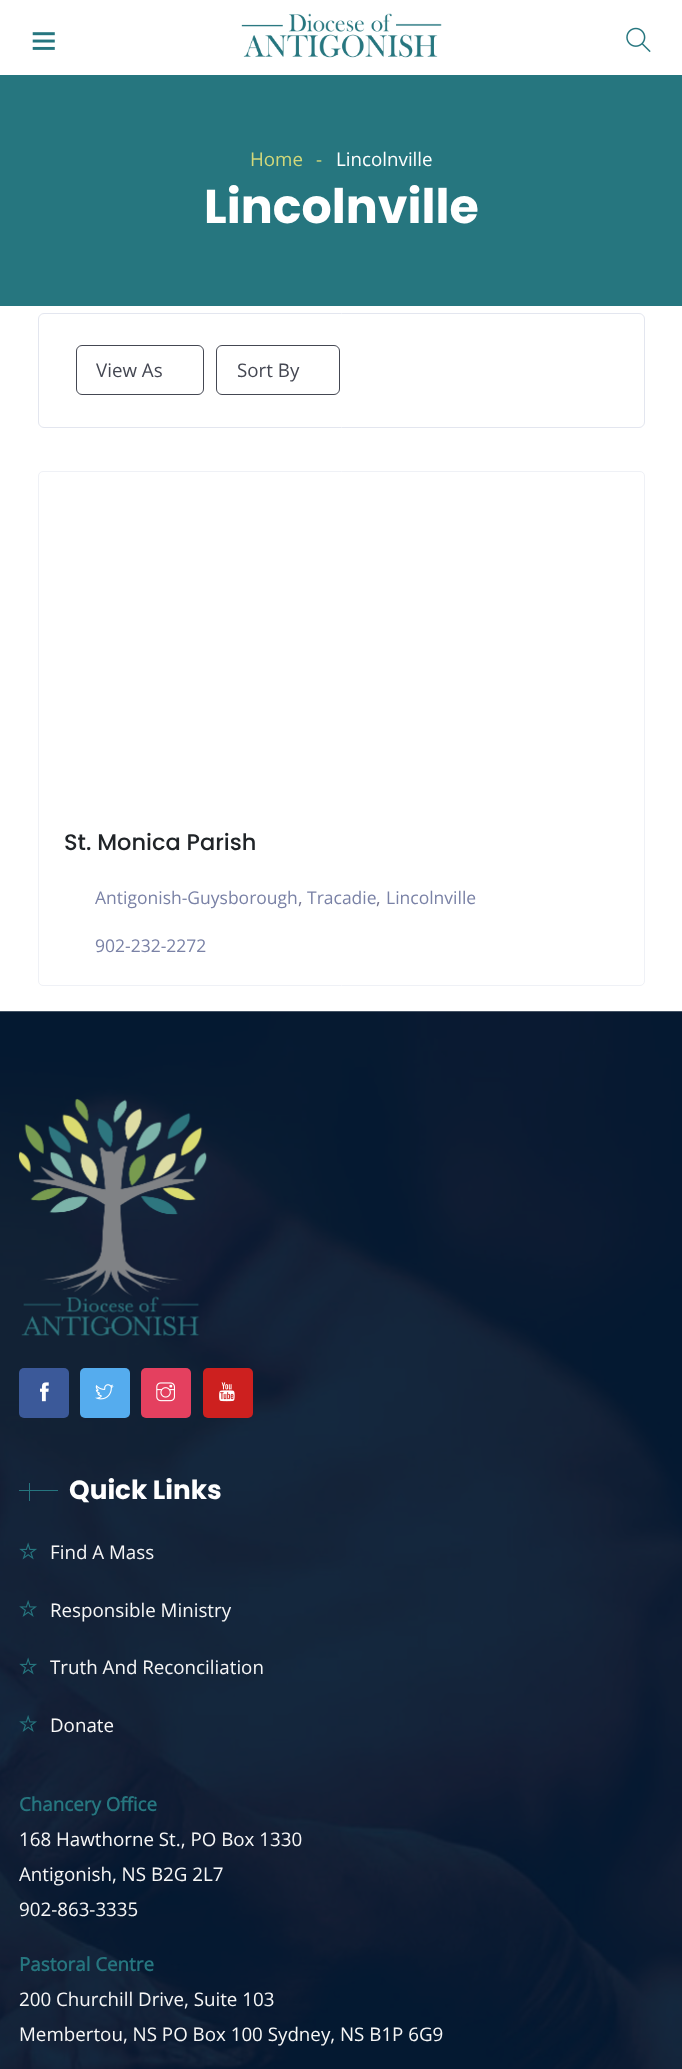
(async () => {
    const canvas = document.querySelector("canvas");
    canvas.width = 682;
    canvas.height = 2069;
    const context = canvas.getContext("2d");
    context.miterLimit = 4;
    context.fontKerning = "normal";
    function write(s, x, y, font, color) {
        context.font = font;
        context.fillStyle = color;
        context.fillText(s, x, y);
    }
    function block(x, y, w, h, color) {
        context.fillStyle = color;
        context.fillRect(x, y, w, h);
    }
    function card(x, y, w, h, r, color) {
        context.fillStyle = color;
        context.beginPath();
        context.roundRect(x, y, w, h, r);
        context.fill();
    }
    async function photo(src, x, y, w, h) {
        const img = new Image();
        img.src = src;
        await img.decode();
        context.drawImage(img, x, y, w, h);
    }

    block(0, 0, 682, 2069, "rgb(255, 255, 255)");
    await photo("media/1.png", 32, 32, 23, 18);
    await photo("media/2.png", 241, 13, 201, 45);
    await photo("media/3.png", 626, 27, 25, 26);
    block(0, 75, 682, 231, "rgb(38, 118, 127)");
    write("Home", 250, 166, "18.75px Open Sans", "rgb(210, 216, 122)");
    write("-", 316, 166, "18.75px Open Sans", "rgb(210, 216, 122)");
    write("Lincolnville", 336, 166, "18.75px Open Sans", "rgb(255, 255, 255)");
    write("Lincolnville", 204, 223, "bold 47.5px Poppins", "rgb(255, 255, 255)");
    context.beginPath();
    context.roundRect(38.5, 313.5, 606, 114, 5.5);
    context.strokeStyle = "rgb(227, 230, 239)";
    context.stroke();
    context.beginPath();
    context.roundRect(76.5, 345.5, 127, 49, 5.5);
    context.strokeStyle = "rgb(68, 71, 82)";
    context.stroke();
    write("View As", 96, 377, "18.75px Open Sans", "rgb(68, 71, 82)");
    context.beginPath();
    context.roundRect(216.5, 345.5, 123, 49, 5.5);
    context.stroke();
    write("Sort By", 237, 377, "18.75px Open Sans", "rgb(68, 71, 82)");
    context.beginPath();
    context.roundRect(38.5, 471.5, 606, 514, 4.5);
    context.strokeStyle = "rgb(239, 241, 246)";
    context.stroke();
    write("St. Monica Parish", 64, 850, "500 22.5px Poppins", "rgb(32, 36, 40)");
    write("Antigonish-Guysborough", 95, 904, "17.5px Open Sans", "rgb(122, 130, 166)");
    write(",", 298, 904, "17.5px Open Sans", "rgb(118, 119, 146)");
    write("Tracadie", 307, 904, "17.5px Open Sans", "rgb(122, 130, 166)");
    write(",", 376, 904, "17.5px Open Sans", "rgb(118, 119, 146)");
    write("Lincolnville", 386, 904, "17.5px Open Sans", "rgb(122, 130, 166)");
    write("902-232-2272", 95, 952, "17.5px Open Sans", "rgb(122, 130, 166)");
    await photo("media/4.png", 0, 1011, 682, 1058);
    await photo("media/5.png", 18, 1098, 189, 238);
    card(19, 1368, 50, 50, 5, "rgb(59, 89, 153)");
    await photo("media/6.png", 40, 1382, 9, 20);
    card(80, 1368, 50, 50, 5, "rgb(85, 172, 238)");
    await photo("media/7.png", 95, 1384, 19, 16);
    card(141, 1368, 50, 50, 5, "rgb(228, 64, 95)");
    await photo("media/8.png", 156, 1382, 19, 20);
    card(203, 1368, 50, 50, 5, "rgb(205, 32, 31)");
    await photo("media/9.png", 219, 1382, 16, 20);
    block(19, 1490, 39, 1, "rgb(38, 118, 127)");
    block(29, 1483, 1, 18, "rgb(38, 118, 127)");
    write("Quick Links", 69, 1499, "bold 26.25px Poppins", "rgb(255, 255, 255)");
    await photo("media/10.png", 19, 1542, 18, 18);
    write("Find A Mass", 50, 1559, "18.75px Open Sans", "rgb(247, 247, 247)");
    await photo("media/11.png", 19, 1600, 18, 17);
    write("Responsible Ministry", 50, 1617, "18.75px Open Sans", "rgb(247, 247, 247)");
    await photo("media/12.png", 19, 1657, 18, 18);
    write("Truth And Reconciliation", 50, 1674, "18.75px Open Sans", "rgb(247, 247, 247)");
    await photo("media/13.png", 19, 1715, 18, 17);
    write("Donate", 50, 1732, "18.75px Open Sans", "rgb(247, 247, 247)");
    write("Chancery Office", 19, 1811, "bold 18.75px Open Sans", "rgb(38, 118, 127)");
    write("168 Hawthorne St., PO Box 1330", 19, 1846, "18.75px Open Sans", "rgb(247, 247, 247)");
    write("Antigonish, NS B2G 2L7", 19, 1881, "18.75px Open Sans", "rgb(247, 247, 247)");
    write("902-863-3335", 19, 1916, "18.75px Open Sans", "rgb(247, 247, 247)");
    write("Pastoral Centre", 19, 1971, "bold 18.75px Open Sans", "rgb(38, 118, 127)");
    write("200 Churchill Drive, Suite 103", 19, 2006, "18.75px Open Sans", "rgb(247, 247, 247)");
    write("Membertou, NS PO Box 100 Sydney, NS B1P 6G9", 19, 2041, "18.75px Open Sans", "rgb(247, 247, 247)");
})();
